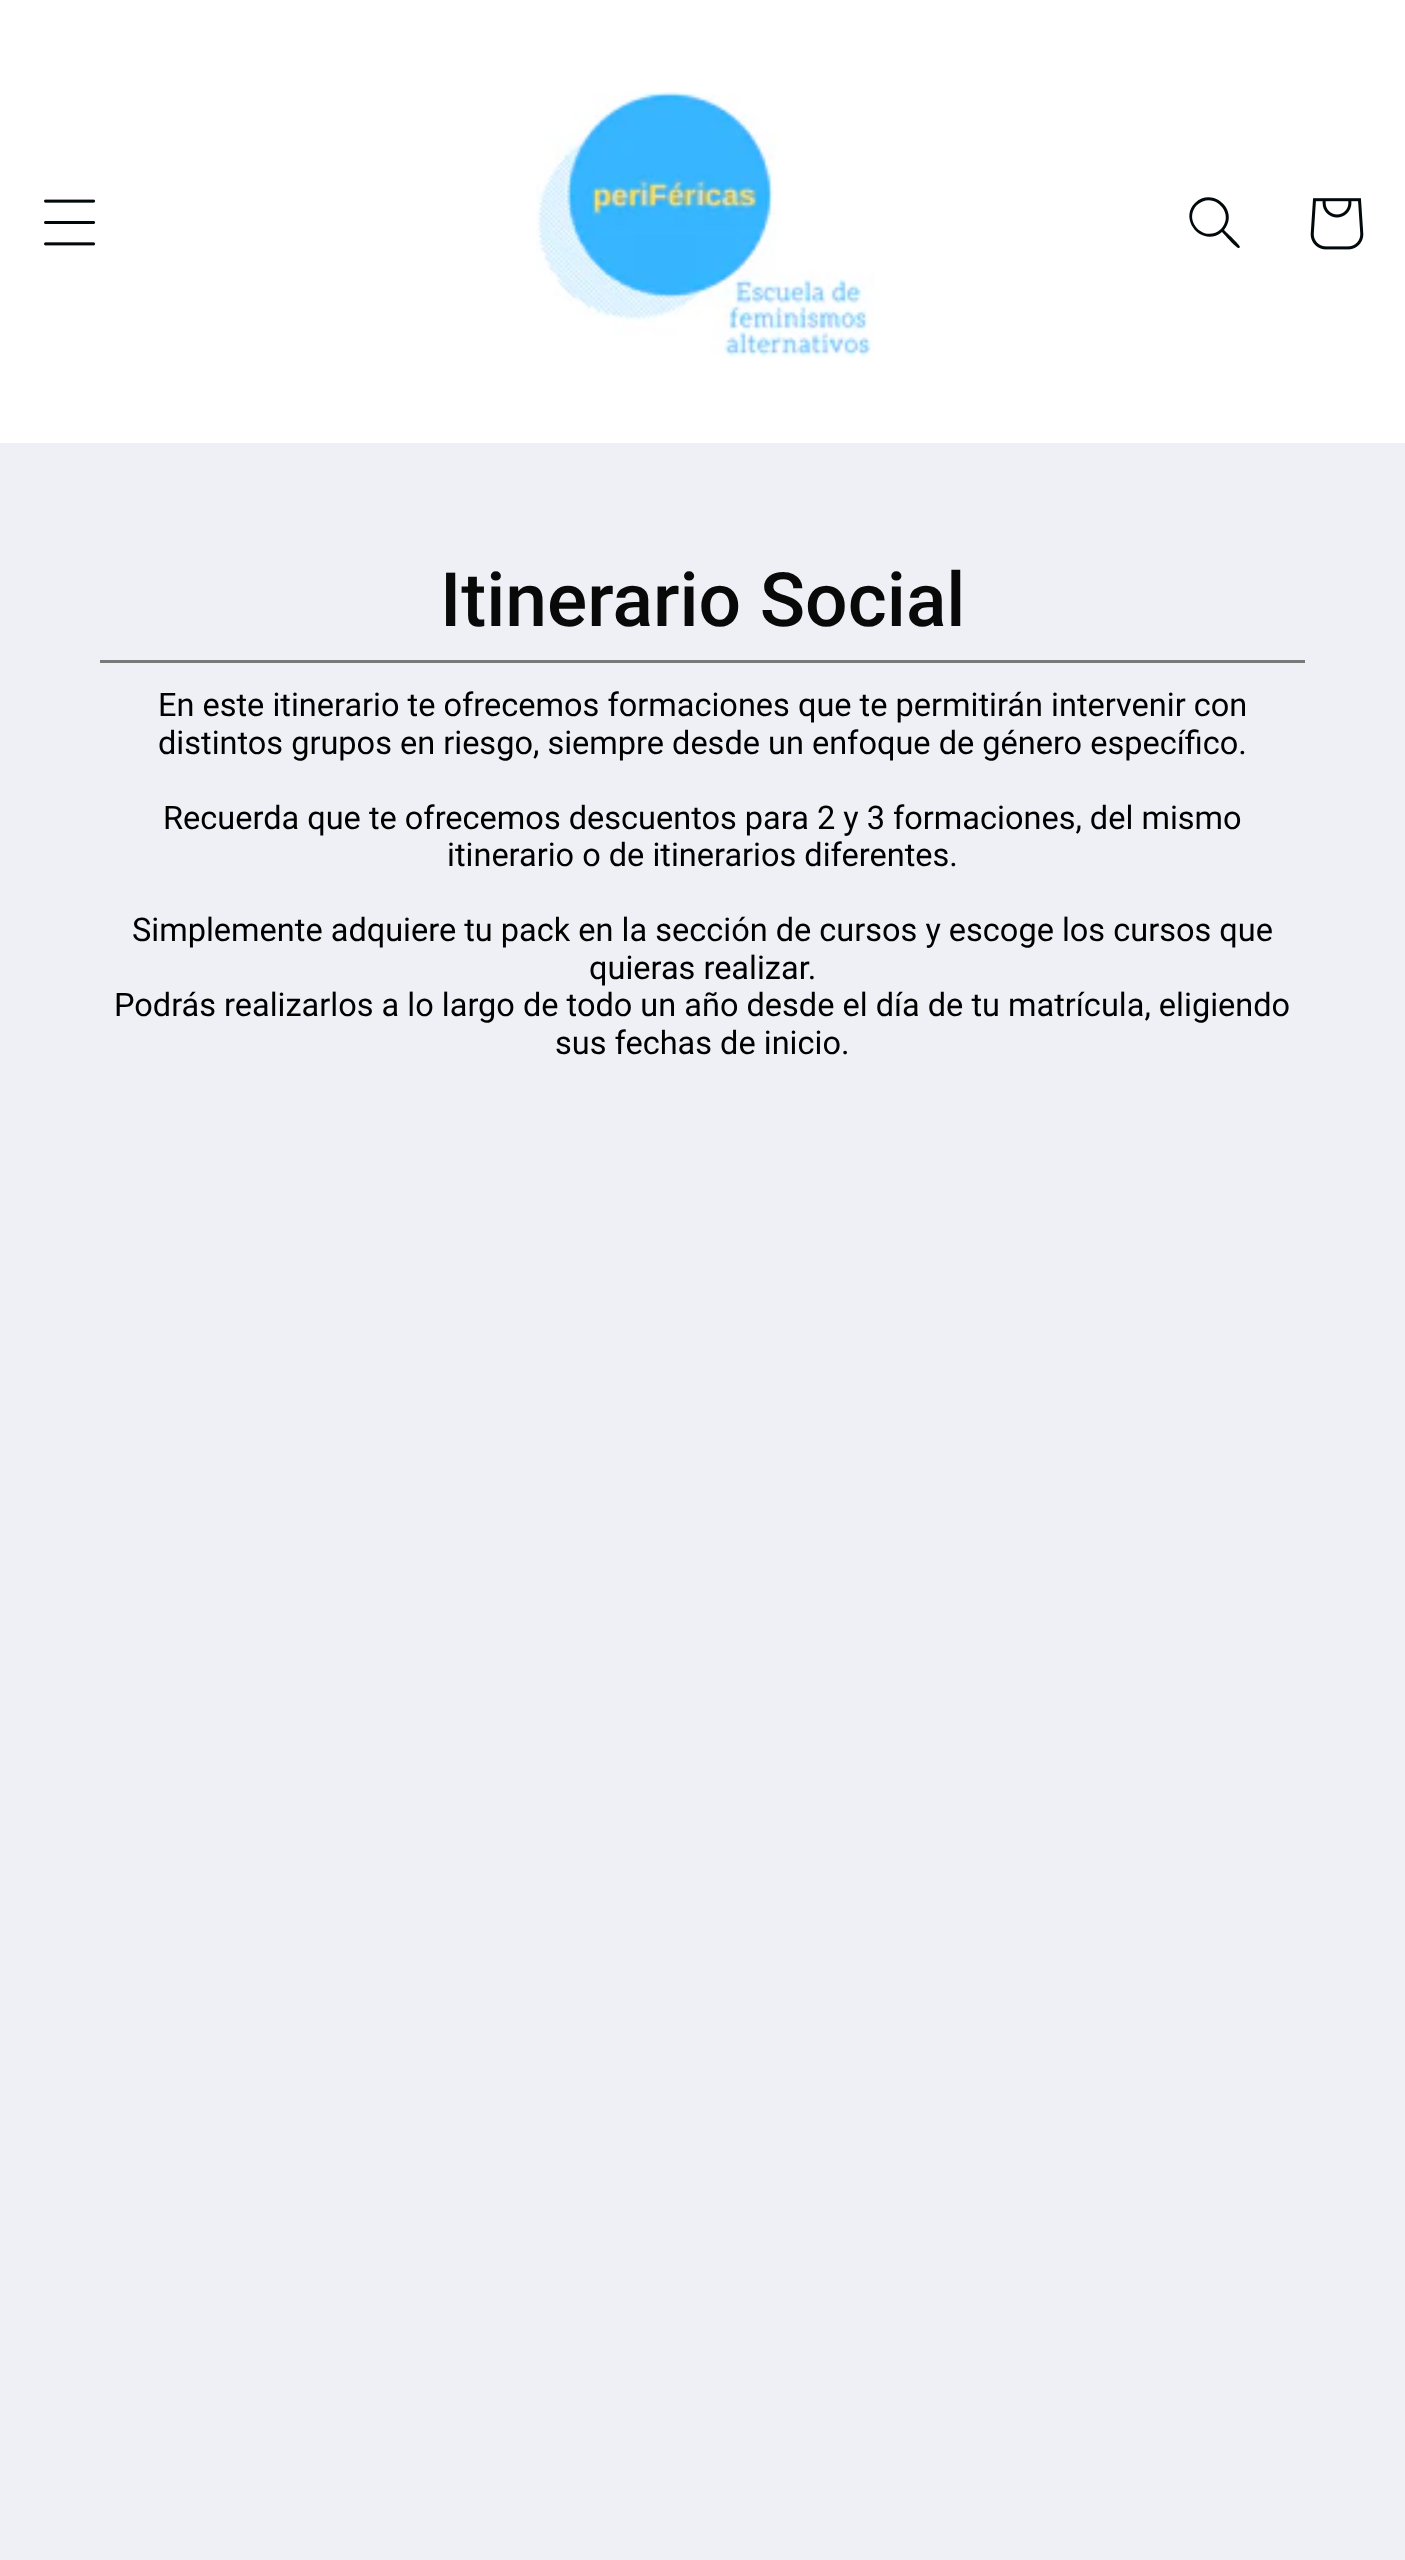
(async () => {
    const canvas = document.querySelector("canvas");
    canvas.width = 1405;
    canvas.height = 2560;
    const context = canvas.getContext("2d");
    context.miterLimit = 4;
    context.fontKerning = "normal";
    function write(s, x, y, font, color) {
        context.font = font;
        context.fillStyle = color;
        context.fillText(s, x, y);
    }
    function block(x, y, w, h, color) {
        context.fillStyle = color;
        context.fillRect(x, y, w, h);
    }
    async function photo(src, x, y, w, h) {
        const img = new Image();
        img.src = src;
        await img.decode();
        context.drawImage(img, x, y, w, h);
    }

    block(0, 0, 1405, 2560, "rgb(239, 240, 245)");
    block(0, 0, 1405, 443, "rgb(255, 255, 255)");
    await photo("media/1.png", 44, 199, 52, 47);
    await photo("media/2.png", 536, 92, 339, 266);
    context.fillStyle = "rgb(1, 9, 11)";
    context.beginPath();
    context.moveTo(1221, 229);
    context.bezierCurveTo(1205, 244, 1182, 221, 1197, 205);
    context.bezierCurveTo(1213, 190, 1236, 213, 1221, 229);
    context.closePath();
    context.moveTo(1222, 232);
    context.bezierCurveTo(1203, 248, 1178, 220, 1195, 203);
    context.bezierCurveTo(1213, 186, 1240, 211, 1224, 230);
    context.bezierCurveTo(1226, 232, 1240, 245, 1240, 247);
    context.lineTo(1239, 248);
    context.bezierCurveTo(1237, 249, 1224, 234, 1222, 232);
    context.closePath();
    context.fill("evenodd");
    await photo("media/3.png", 1310, 198, 54, 52);
    block(100, 660, 1205, 3, "rgb(121, 121, 121)");
    write("Itinerario Social", 440, 626, "500 75px Roboto", "rgb(9, 9, 9)");
    write("En este itinerario te ofrecemos formaciones que te permitirán intervenir con", 158, 716, "32.5px Roboto", "rgb(0, 0, 0)");
    write("distintos grupos en riesgo, siempre desde un enfoque de género específico.", 158, 754, "32.5px Roboto", "rgb(0, 0, 0)");
    write("Recuerda que te ofrecemos descuentos para 2 y 3 formaciones, del mismo", 163, 829, "32.5px Roboto", "rgb(0, 0, 0)");
    write("itinerario o de itinerarios diferentes.", 447, 866, "32.5px Roboto", "rgb(0, 0, 0)");
    write("Simplemente adquiere tu pack en la sección de cursos y escoge los cursos que", 132, 941, "32.5px Roboto", "rgb(0, 0, 0)");
    write("quieras realizar.", 589, 979, "32.5px Roboto", "rgb(0, 0, 0)");
    write("Podrás realizarlos a lo largo de todo un año desde el día de tu matrícula, eligiendo", 114, 1016, "32.5px Roboto", "rgb(0, 0, 0)");
    write("sus fechas de inicio.", 555, 1054, "32.5px Roboto", "rgb(0, 0, 0)");
})();
